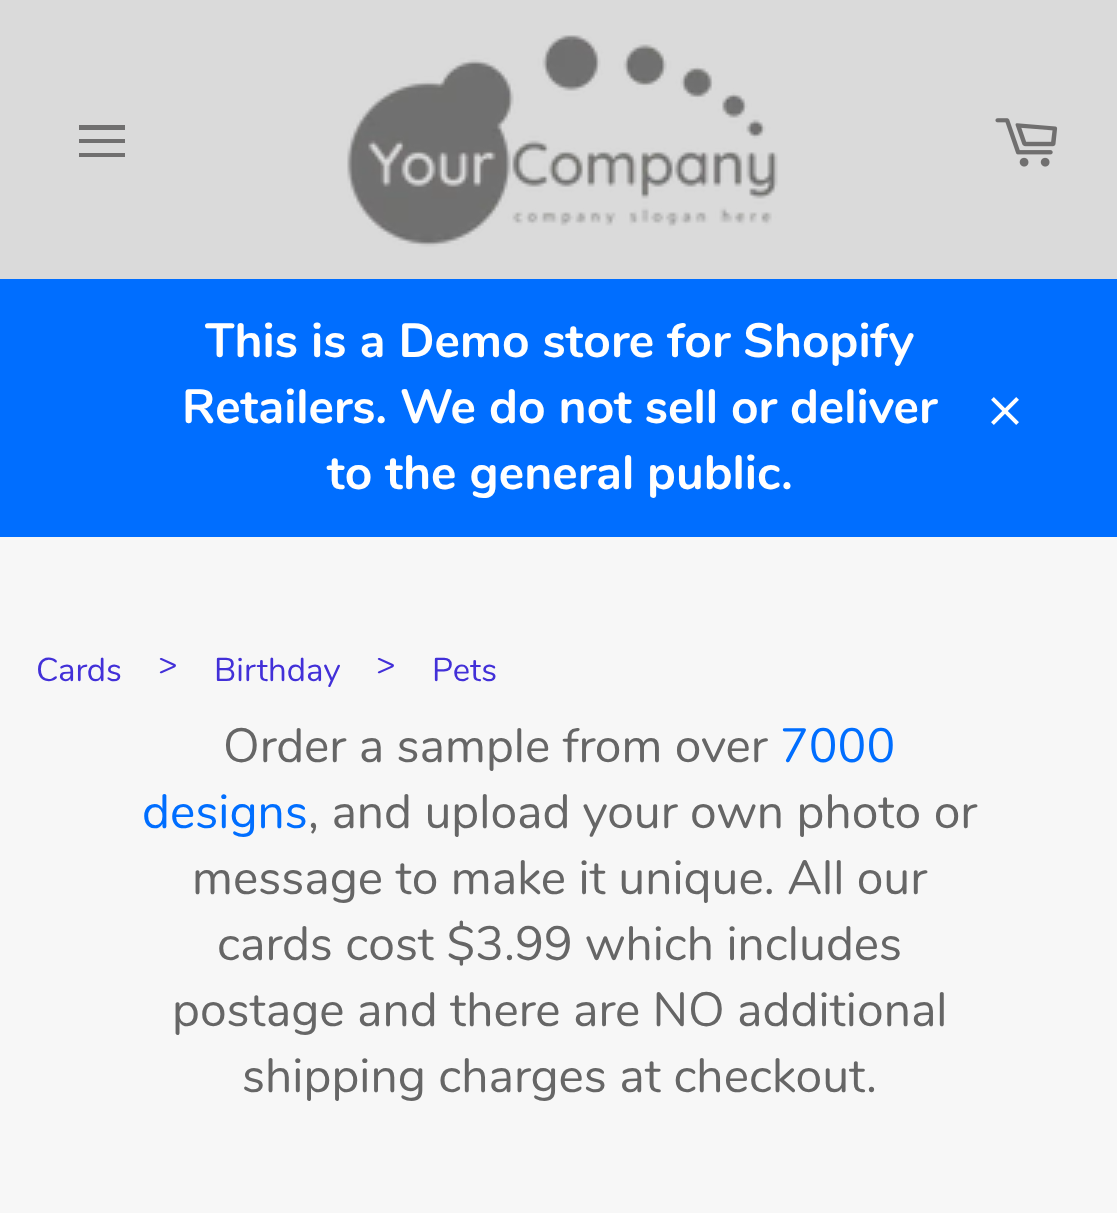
(async () => {
    const canvas = document.querySelector("canvas");
    canvas.width = 1117;
    canvas.height = 1213;
    const context = canvas.getContext("2d");
    context.miterLimit = 4;
    context.fontKerning = "normal";
    function write(s, x, y, font, color) {
        context.font = font;
        context.fillStyle = color;
        context.fillText(s, x, y);
    }
    function block(x, y, w, h, color) {
        context.fillStyle = color;
        context.fillRect(x, y, w, h);
    }
    async function photo(src, x, y, w, h) {
        const img = new Image();
        img.src = src;
        await img.decode();
        context.drawImage(img, x, y, w, h);
    }

    block(0, 0, 1117, 1213, "rgb(247, 247, 247)");
    block(0, 0, 1117, 279, "rgb(218, 218, 218)");
    context.fillStyle = "rgb(112, 111, 111)";
    context.beginPath();
    context.moveTo(79, 139);
    context.lineTo(125, 139);
    context.lineTo(125, 143);
    context.lineTo(79, 143);
    context.closePath();
    context.moveTo(79, 125);
    context.lineTo(125, 125);
    context.lineTo(125, 130);
    context.lineTo(79, 130);
    context.closePath();
    context.moveTo(79, 153);
    context.lineTo(125, 153);
    context.lineTo(125, 157);
    context.lineTo(79, 157);
    context.closePath();
    context.fill();
    await photo("media/1.png", 347, 35, 431, 212);
    await photo("media/2.png", 995, 118, 63, 49);
    block(0, 279, 1117, 258, "rgb(0, 110, 255)");
    write("This is a Demo store for Shopify", 205, 357, "bold 48px Nunito", "rgb(255, 255, 255)");
    write("Retailers. We do not sell or deliver", 182, 423, "bold 48px Nunito", "rgb(255, 255, 255)");
    write("to the general public.", 327, 489, "bold 48px Nunito", "rgb(255, 255, 255)");
    await photo("media/3.png", 991, 397, 28, 28);
    write("Cards", 36, 681, "33px Nunito", "rgb(66, 48, 216)");
    write(">", 158, 675, "33px Nunito", "rgb(66, 48, 216)");
    write("Birthday", 214, 681, "33px Nunito", "rgb(66, 48, 216)");
    write(">", 376, 675, "33px Nunito", "rgb(66, 48, 216)");
    write("Pets", 432, 681, "33px Nunito", "rgb(66, 48, 216)");
    write("Order a sample from over", 223, 762, "48px Nunito", "rgb(102, 102, 102)");
    write("7000", 780, 762, "48px Nunito", "rgb(0, 110, 255)");
    write("designs", 142, 828, "48px Nunito", "rgb(0, 110, 255)");
    write(", and upload your own photo or", 308, 828, "48px Nunito", "rgb(102, 102, 102)");
    write("message to make it unique. All our", 192, 894, "48px Nunito", "rgb(102, 102, 102)");
    write("cards cost $3.99 which includes", 217, 960, "48px Nunito", "rgb(102, 102, 102)");
    write("postage and there are NO additional", 172, 1026, "48px Nunito", "rgb(102, 102, 102)");
    write("shipping charges at checkout.", 242, 1092, "48px Nunito", "rgb(102, 102, 102)");
})();
